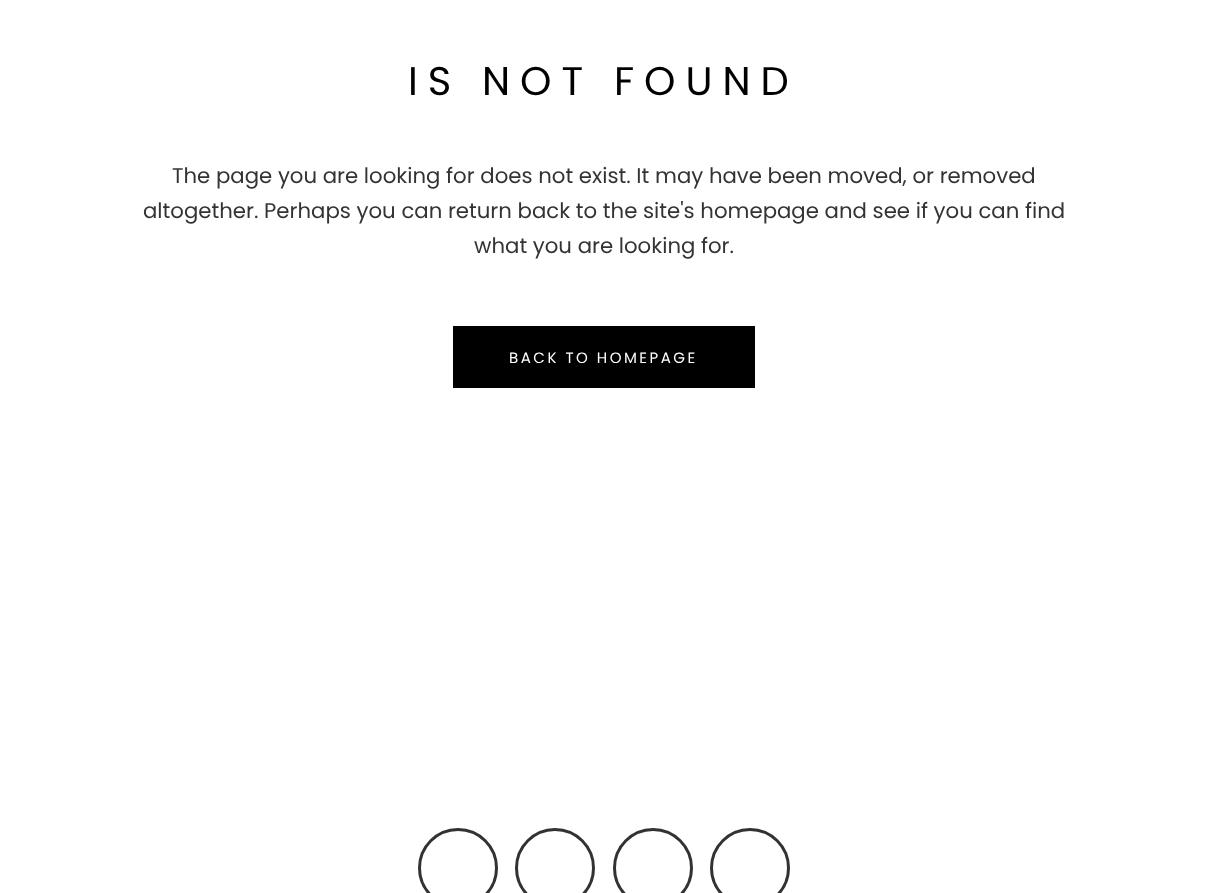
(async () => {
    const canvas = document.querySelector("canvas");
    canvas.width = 1207;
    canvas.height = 893;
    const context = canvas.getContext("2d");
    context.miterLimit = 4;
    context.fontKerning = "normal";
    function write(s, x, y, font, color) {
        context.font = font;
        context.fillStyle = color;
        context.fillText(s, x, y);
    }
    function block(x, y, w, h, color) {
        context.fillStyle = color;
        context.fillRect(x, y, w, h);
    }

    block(0, 0, 1207, 893, "rgb(255, 255, 255)");
    context.letterSpacing = "10px";
    write("IS NOT FOUND", 408, 95, "40px Poppins", "rgb(0, 0, 0)");
    context.letterSpacing = "0px";
    write("The page you are looking for does not exist. It may have been moved, or removed", 172, 183, "21.25px Poppins", "rgb(51, 51, 51)");
    write("altogether. Perhaps you can return back to the site's homepage and see if you can find", 143, 218, "21.25px Poppins", "rgb(51, 51, 51)");
    write("what you are looking for.", 474, 253, "21.25px Poppins", "rgb(51, 51, 51)");
    block(453, 326, 302, 62, "rgb(0, 0, 0)");
    context.letterSpacing = "2.5px";
    write("BACK TO HOMEPAGE", 509, 363, "15px Poppins", "rgb(255, 255, 255)");
    context.beginPath();
    context.arc(458, 868, 38.5, 0, Math.PI * 2);
    context.strokeStyle = "rgb(50, 50, 50)";
    context.lineWidth = 3;
    context.stroke();
    context.beginPath();
    context.arc(555, 868, 38.5, 0, Math.PI * 2);
    context.stroke();
    context.beginPath();
    context.arc(653, 868, 38.5, 0, Math.PI * 2);
    context.stroke();
    context.beginPath();
    context.arc(750, 868, 38.5, 0, Math.PI * 2);
    context.stroke();
})();
